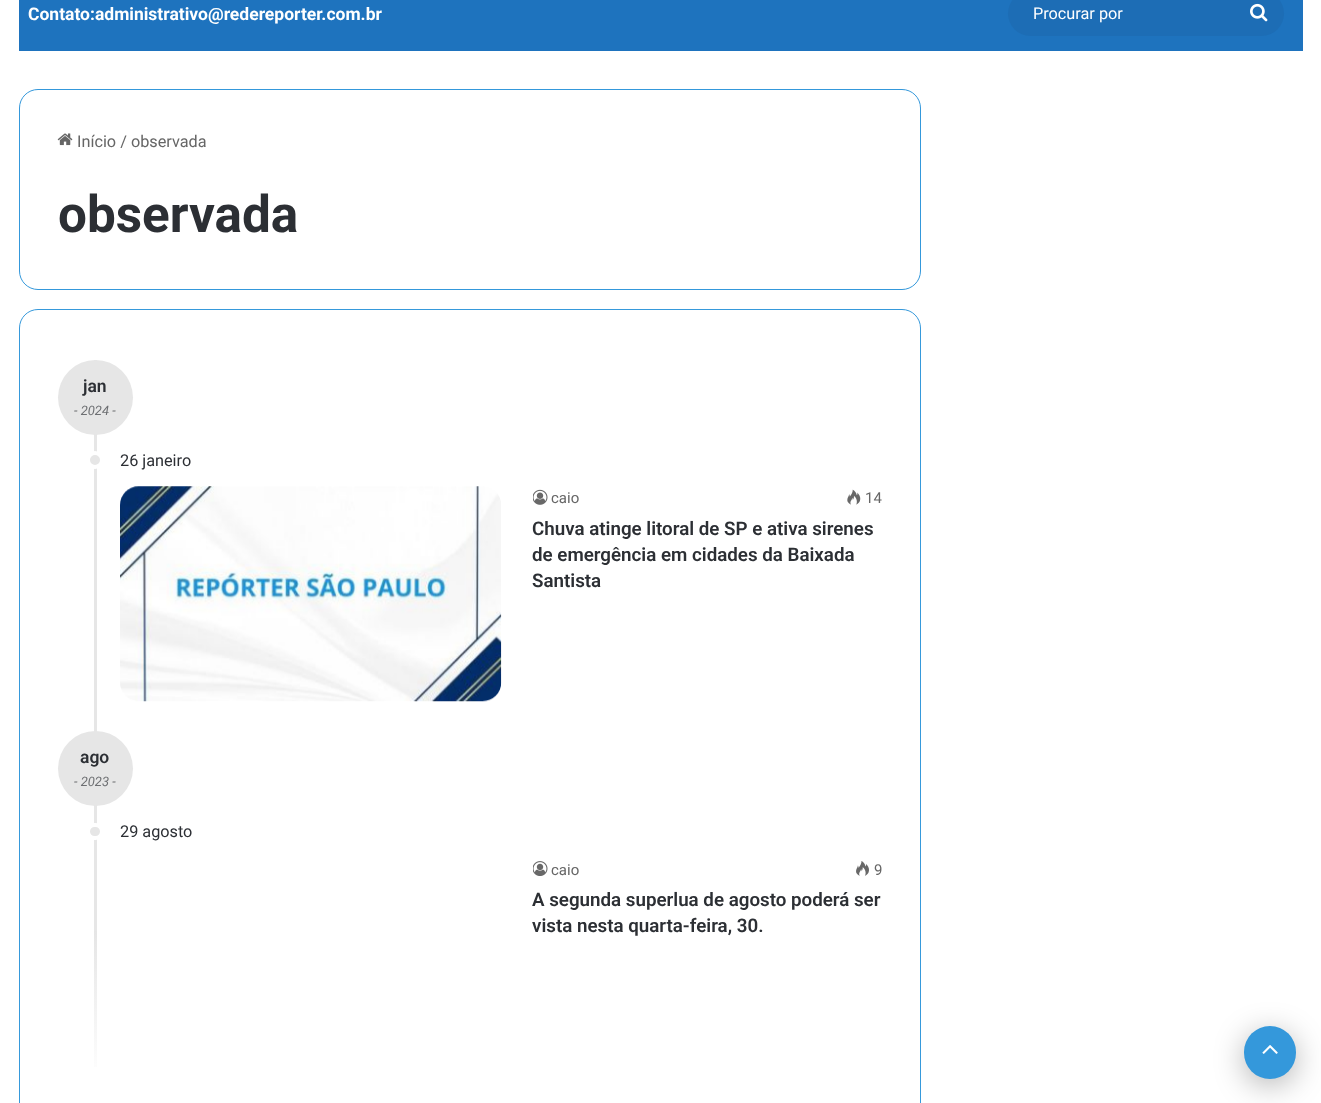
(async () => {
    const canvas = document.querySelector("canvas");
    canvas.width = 1321;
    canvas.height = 1103;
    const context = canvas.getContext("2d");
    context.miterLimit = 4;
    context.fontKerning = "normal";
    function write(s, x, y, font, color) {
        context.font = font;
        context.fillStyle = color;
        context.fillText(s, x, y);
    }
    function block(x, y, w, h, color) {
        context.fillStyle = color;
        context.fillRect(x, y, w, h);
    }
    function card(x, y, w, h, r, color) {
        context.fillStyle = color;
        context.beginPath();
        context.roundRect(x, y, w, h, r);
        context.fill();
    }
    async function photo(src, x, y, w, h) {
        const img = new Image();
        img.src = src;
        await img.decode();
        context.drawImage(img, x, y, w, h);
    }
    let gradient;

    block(0, 0, 1321, 1103, "rgb(255, 255, 255)");
    block(19, 0, 1284, 51, "rgb(30, 115, 190)");
    write("Contato:administrativo@redereporter.com.br", 28, 20, "bold 17.5px Roboto", "rgb(255, 255, 255)");
    card(1008, -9, 276, 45, 22.5, "rgb(29, 109, 181)");
    write("Procurar por", 1033, 19, "16.25px Roboto", "rgb(255, 255, 255)");
    await photo("media/1.png", 1250, 3, 18, 19);
    context.beginPath();
    context.roundRect(19.5, 89.5, 901, 200, 18.5);
    context.strokeStyle = "rgb(52, 152, 219)";
    context.stroke();
    await photo("media/2.png", 57, 133, 16, 13);
    write("Início / observada", 77, 147, "16.25px Roboto", "rgb(102, 102, 102)");
    write("observada", 58, 232, "bold 51.25px Roboto", "rgb(44, 47, 52)");
    context.beginPath();
    context.roundRect(19.5, 309.5, 901, 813, 18.5);
    context.strokeStyle = "rgb(54, 153, 219)";
    context.stroke();
    block(94, 360, 3, 571, "rgb(230, 230, 230)");
    context.beginPath();
    context.arc(95.5, 397.5, 37.5, 0, Math.PI * 2);
    context.fill();
    write("jan", 83, 392, "600 17.5px Roboto", "rgb(44, 47, 52)");
    write("- 2024 -", 74, 415, "italic 13px Roboto", "rgb(109, 111, 114)");
    context.fillStyle = "rgb(230, 230, 230)";
    context.beginPath();
    context.arc(95, 460, 7, 0, Math.PI * 2);
    context.fill();
    context.strokeStyle = "rgb(255, 255, 255)";
    context.lineWidth = 4;
    context.stroke();
    write("26 janeiro", 120, 466, "16.25px Roboto", "rgb(44, 47, 52)");
    await photo("media/3.png", 120, 486, 382, 216);
    await photo("media/4.png", 533, 489, 15, 16);
    write("caio", 551, 503, "15px Roboto", "rgb(102, 102, 102)");
    await photo("media/5.png", 847, 489, 14, 16);
    write("14", 865, 503, "15px Roboto", "rgb(102, 102, 102)");
    write("Chuva atinge litoral de SP e ativa sirenes", 532, 535, "600 18.75px Roboto", "rgb(44, 47, 52)");
    write("de emergência em cidades da Baixada", 532, 561, "600 18.75px Roboto", "rgb(44, 47, 52)");
    write("Santista", 532, 587, "600 18.75px Roboto", "rgb(44, 47, 52)");
    context.fillStyle = "rgb(230, 230, 230)";
    context.beginPath();
    context.arc(95.5, 768.5, 37.5, 0, Math.PI * 2);
    context.fill();
    write("ago", 80, 763, "600 17.5px Roboto", "rgb(44, 47, 52)");
    write("- 2023 -", 74, 786, "italic 13px Roboto", "rgb(109, 111, 114)");
    context.fillStyle = "rgb(230, 230, 230)";
    context.beginPath();
    context.roundRect(88, 825, 14, 13, 6.5);
    context.fill();
    context.stroke();
    write("29 agosto", 120, 837, "16.25px Roboto", "rgb(44, 47, 52)");
    await photo("media/6.png", 533, 861, 15, 15);
    write("caio", 551, 875, "15px Roboto", "rgb(102, 102, 102)");
    await photo("media/7.png", 856, 861, 13, 15);
    write("9", 874, 875, "15px Roboto", "rgb(102, 102, 102)");
    write("A segunda superlua de agosto poderá ser", 532, 906, "600 18.75px Roboto", "rgb(44, 47, 52)");
    write("vista nesta quarta-feira, 30.", 532, 932, "600 18.75px Roboto", "rgb(44, 47, 52)");
    gradient = context.createLinearGradient(95, 931, 95, 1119);
    gradient.addColorStop(0, "rgb(229, 229, 229)");
    gradient.addColorStop(0.8, "rgb(255, 255, 255)");
    context.fillStyle = gradient;
    context.fillRect(94, 931, 3, 136);
    context.fillStyle = "rgba(0, 0, 0, 0.3)";
    context.filter = "blur(15.5px)";
    context.beginPath();
    context.roundRect(1244, 1033, 52, 52, 26);
    context.fill();
    context.filter = "none";
    card(1244, 1026, 52, 53, 26, "rgb(52, 152, 219)");
    await photo("media/8.png", 1262, 1045, 16, 9);
})();
